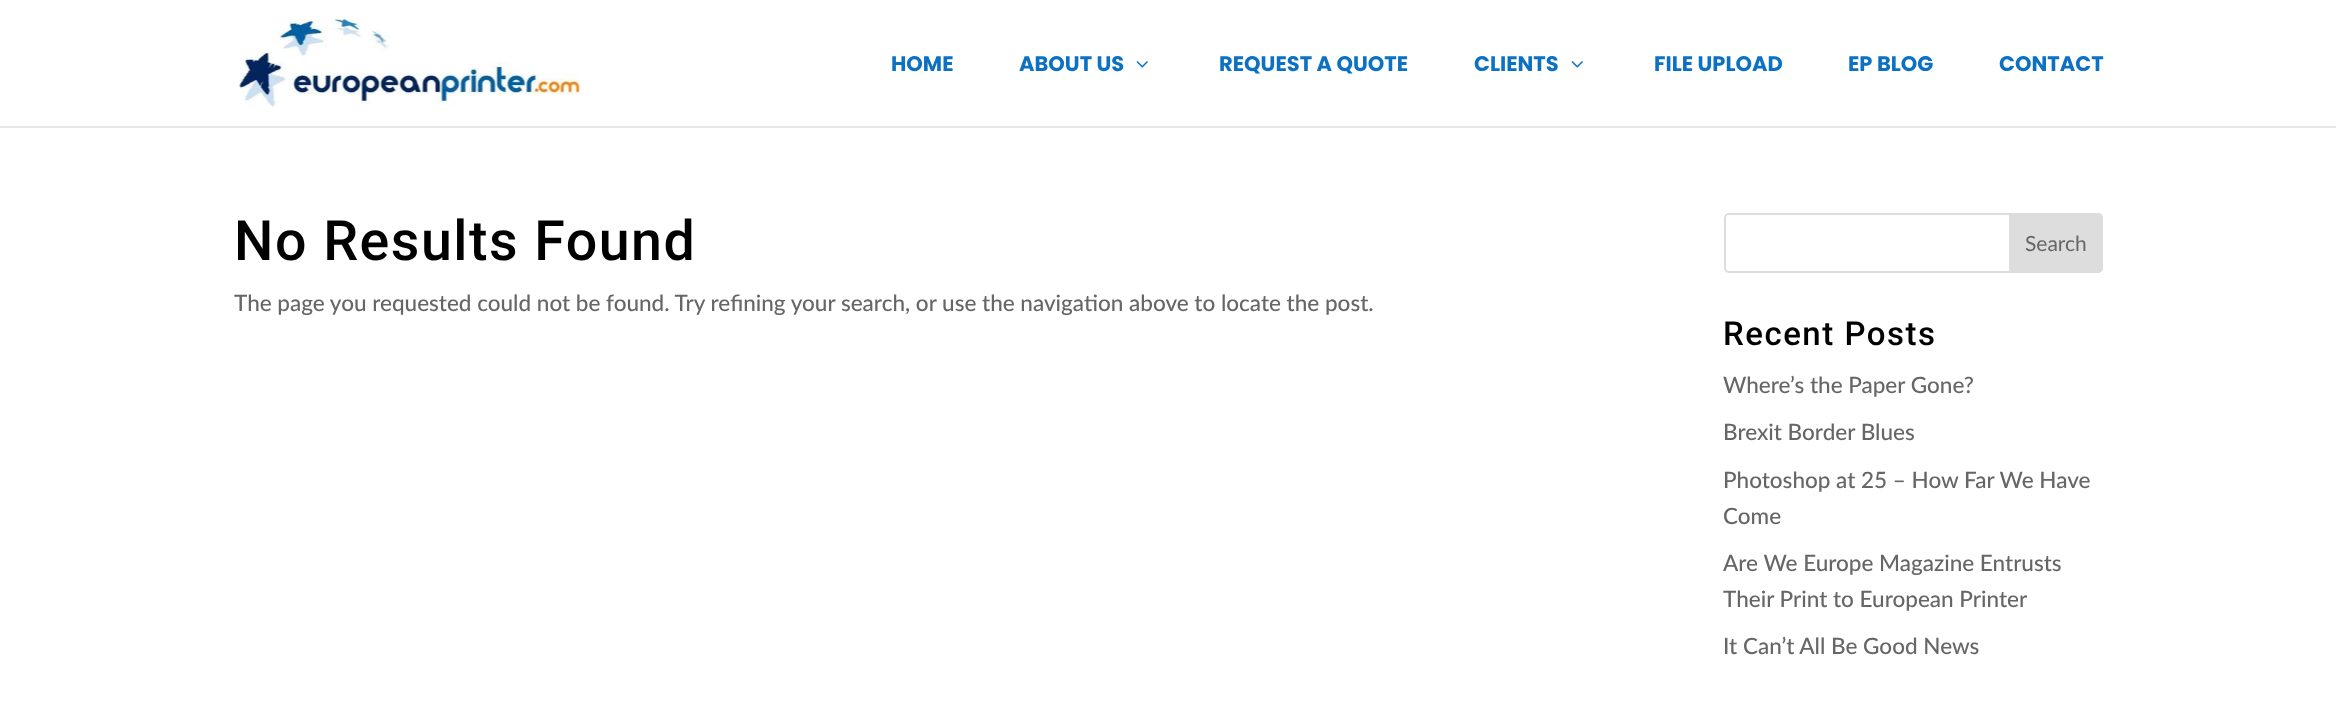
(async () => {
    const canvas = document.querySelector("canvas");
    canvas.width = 2336;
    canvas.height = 719;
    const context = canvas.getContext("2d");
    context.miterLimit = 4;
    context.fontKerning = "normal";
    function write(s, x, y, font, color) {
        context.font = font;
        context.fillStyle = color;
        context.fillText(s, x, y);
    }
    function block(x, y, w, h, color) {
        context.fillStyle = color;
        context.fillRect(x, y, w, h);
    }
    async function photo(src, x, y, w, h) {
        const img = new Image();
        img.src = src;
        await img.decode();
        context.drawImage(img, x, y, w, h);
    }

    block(0, 0, 2336, 719, "rgb(255, 255, 255)");
    block(0, 126, 2336, 2, "rgb(230, 230, 230)");
    await photo("media/1.png", 239, 19, 341, 88);
    write("HOME", 891, 71, "bold 21px Poppins", "rgb(12, 113, 195)");
    write("ABOUT US", 1019, 71, "bold 21px Poppins", "rgb(12, 113, 195)");
    await photo("media/2.png", 1136, 61, 12, 7);
    write("REQUEST A QUOTE", 1219, 71, "bold 21px Poppins", "rgb(12, 113, 195)");
    write("CLIENTS", 1474, 71, "bold 21px Poppins", "rgb(12, 113, 195)");
    await photo("media/2.png", 1571, 61, 12, 7);
    write("FILE UPLOAD", 1654, 71, "bold 21px Poppins", "rgb(12, 113, 195)");
    write("EP BLOG", 1848, 71, "bold 21px Poppins", "rgb(12, 113, 195)");
    write("CONTACT", 1999, 71, "bold 21px Poppins", "rgb(12, 113, 195)");
    context.letterSpacing = "1.5px";
    write("No Results Found", 234, 260, "500 55.5px Roboto", "rgb(0, 0, 0)");
    context.letterSpacing = "0px";
    write("The page you requested could not be found. Try refining your search, or use the navigation above to locate the post.", 234, 311, "500 22.5px Lato", "rgb(102, 102, 102)");
    context.beginPath();
    context.roundRect(1725, 214, 377, 58, 4);
    context.strokeStyle = "rgb(221, 221, 221)";
    context.lineWidth = 2;
    context.stroke();
    context.fillStyle = "rgb(221, 221, 221)";
    context.beginPath();
    context.roundRect(2010, 214, 92, 58, [0, 4, 4, 0]);
    context.fill();
    context.stroke();
    write("Search", 2025, 251, "21px Lato", "rgb(102, 102, 102)");
    context.letterSpacing = "1.5px";
    write("Recent Posts", 1723, 345, "500 33px Roboto", "rgb(0, 0, 0)");
    context.letterSpacing = "0px";
    write("Where’s the Paper Gone?", 1723, 393, "500 22.5px Lato", "rgb(102, 102, 102)");
    write("Brexit Border Blues", 1723, 440, "500 22.5px Lato", "rgb(102, 102, 102)");
    write("Photoshop at 25 – How Far We Have", 1723, 488, "500 22.5px Lato", "rgb(102, 102, 102)");
    write("Come", 1723, 524, "500 22.5px Lato", "rgb(102, 102, 102)");
    write("Are We Europe Magazine Entrusts", 1723, 571, "500 22.5px Lato", "rgb(102, 102, 102)");
    write("Their Print to European Printer", 1723, 607, "500 22.5px Lato", "rgb(102, 102, 102)");
    write("It Can’t All Be Good News", 1723, 654, "500 22.5px Lato", "rgb(102, 102, 102)");
})();
